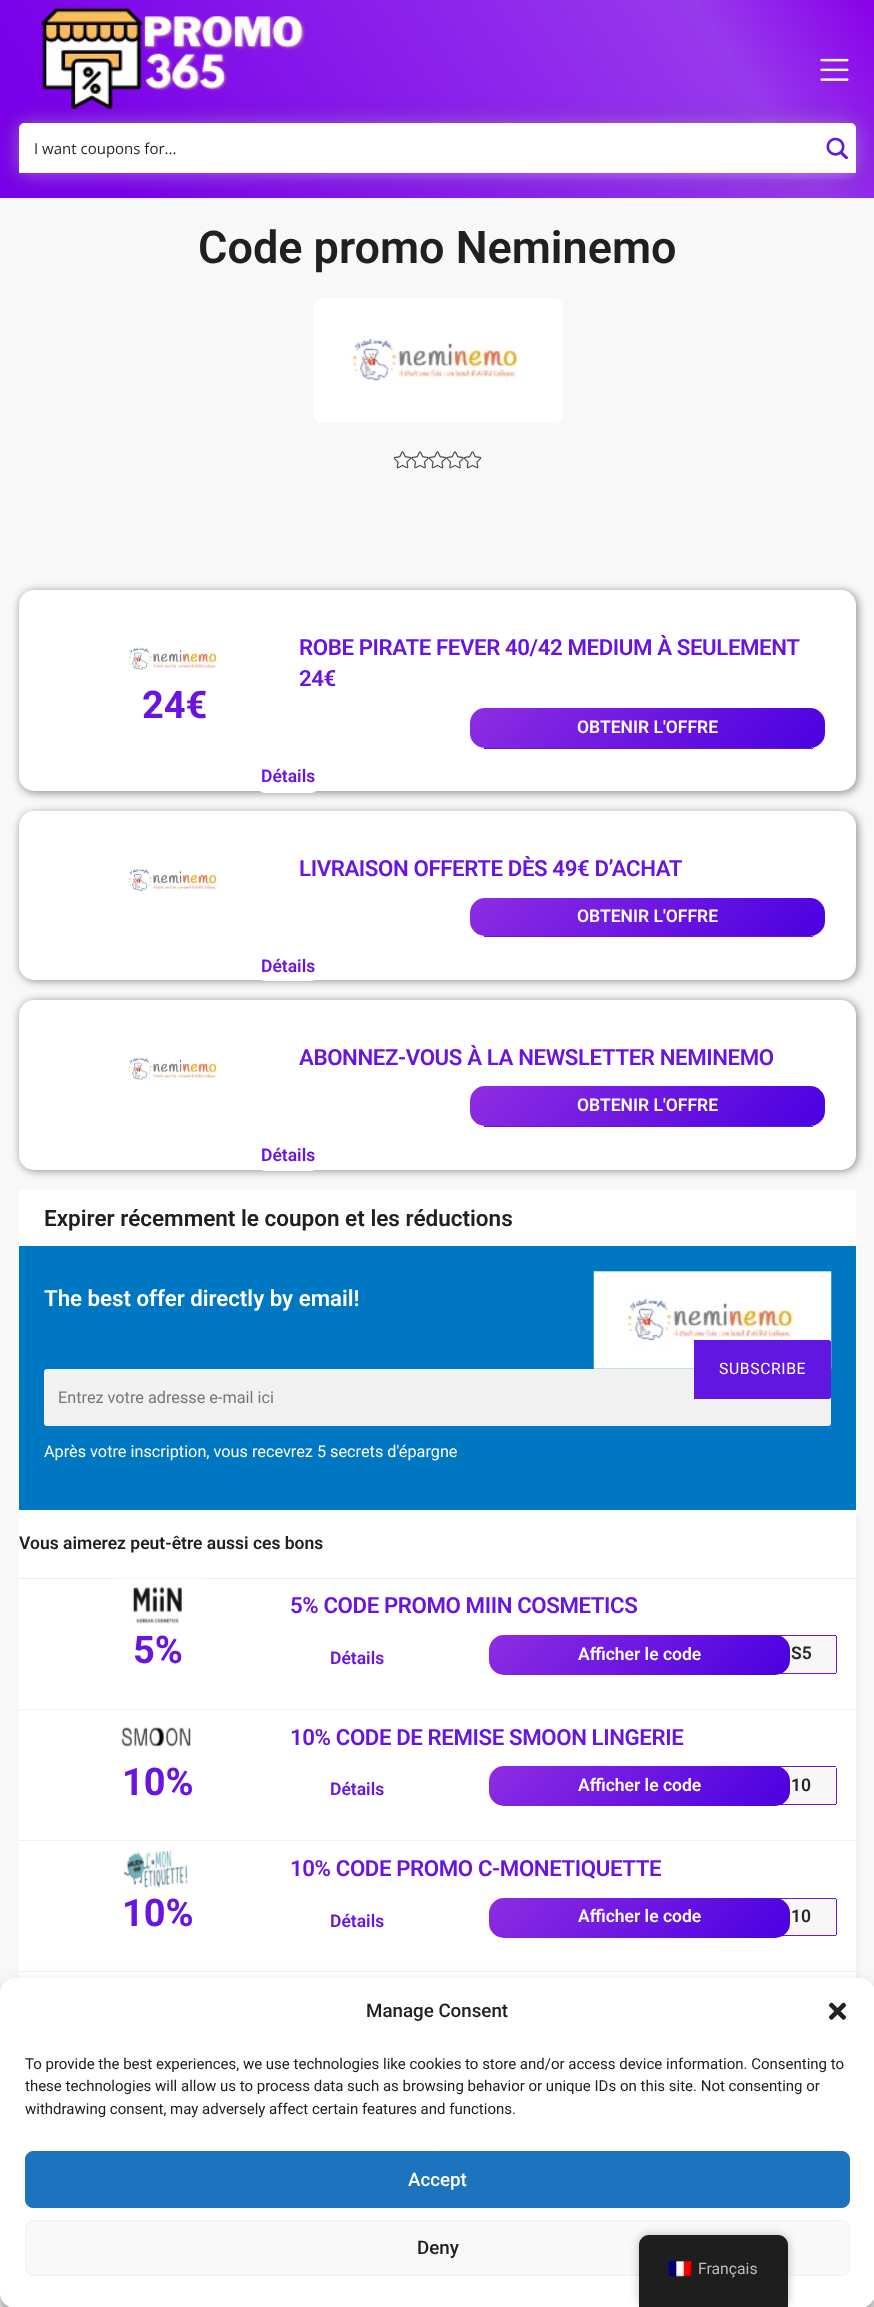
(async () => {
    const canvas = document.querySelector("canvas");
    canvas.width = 874;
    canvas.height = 2307;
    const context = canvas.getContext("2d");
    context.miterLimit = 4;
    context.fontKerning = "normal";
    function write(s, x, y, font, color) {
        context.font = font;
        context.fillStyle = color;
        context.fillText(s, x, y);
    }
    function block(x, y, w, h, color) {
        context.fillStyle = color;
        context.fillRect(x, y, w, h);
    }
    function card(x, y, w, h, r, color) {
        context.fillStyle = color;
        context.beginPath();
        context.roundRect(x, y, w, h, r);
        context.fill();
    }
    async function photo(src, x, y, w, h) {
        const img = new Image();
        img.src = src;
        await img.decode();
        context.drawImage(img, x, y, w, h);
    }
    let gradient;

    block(0, 0, 874, 2307, "rgb(248, 248, 248)");
    gradient = context.createLinearGradient(85, 328, 790, -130);
    gradient.addColorStop(0.1, "rgb(122, 0, 233)");
    gradient.addColorStop(0.82, "rgb(151, 57, 236)");
    gradient.addColorStop(1, "rgb(137, 0, 233)");
    context.fillStyle = gradient;
    context.fillRect(0, 0, 874, 198);
    await photo("media/1.png", 820, 58, 29, 23);
    await photo("media/2.png", 41, 7, 265, 103);
    context.save();
    context.beginPath();
    context.moveTo(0, 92);
    context.lineTo(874, 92);
    context.lineTo(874, 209);
    context.lineTo(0, 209);
    context.closePath();
    context.moveTo(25, 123);
    context.lineTo(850, 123);
    context.bezierCurveTo(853.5, 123, 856, 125.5, 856, 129);
    context.lineTo(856, 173);
    context.bezierCurveTo(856, 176.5, 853.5, 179, 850, 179);
    context.lineTo(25, 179);
    context.bezierCurveTo(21.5, 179, 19, 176.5, 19, 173);
    context.lineTo(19, 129);
    context.bezierCurveTo(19, 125.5, 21.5, 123, 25, 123);
    context.closePath();
    context.clip("evenodd");
    context.fillStyle = "rgba(87, 25, 163, 0.3)";
    context.filter = "blur(7.5px)";
    context.beginPath();
    context.roundRect(13, 116, 850, 69, 13);
    context.fill();
    context.filter = "none";
    context.restore();
    context.fillStyle = "rgba(255, 255, 255, 0.34)";
    context.filter = "blur(9.5px)";
    context.beginPath();
    context.roundRect(19, 124, 837, 50, 5);
    context.fill();
    context.filter = "none";
    context.fillStyle = "rgb(255, 255, 255)";
    context.beginPath();
    context.roundRect(19.5, 123.5, 836, 49, [4.5, 4.5, 0, 0]);
    context.fill();
    context.strokeStyle = "rgb(255, 255, 255)";
    context.stroke();
    write("I want coupons for...", 34, 154, "15px Open Sans", "rgb(38, 38, 38)");
    await photo("media/3.png", 826, 137, 23, 22);
    write("Code promo Neminemo", 198, 263, "600 45px Roboto", "rgb(32, 32, 32)");
    card(313, 298, 250, 125, 9, "rgb(255, 255, 255)");
    await photo("media/4.png", 351, 336, 168, 45);
    await photo("media/5.png", 393, 451, 19, 18);
    await photo("media/6.png", 411, 451, 18, 18);
    await photo("media/7.png", 428, 451, 19, 18);
    await photo("media/6.png", 446, 451, 18, 18);
    await photo("media/7.png", 463, 451, 19, 18);
    context.fillStyle = "rgba(0, 0, 0, 0.42)";
    context.filter = "blur(4.5px)";
    context.beginPath();
    context.roundRect(20, 591, 838, 202, 15);
    context.fill();
    context.filter = "none";
    card(19, 590, 837, 201, 15, "rgb(255, 255, 255)");
    context.letterSpacing = "-0.4px";
    write("ROBE PIRATE FEVER 40/42 MEDIUM À SEULEMENT", 299, 655, "600 22.25px Roboto", "rgb(105, 20, 225)");
    write("24€", 299, 686, "600 22.25px Roboto", "rgb(105, 20, 225)");
    await photo("media/8.png", 127, 646, 91, 24);
    context.letterSpacing = "0px";
    write("24€", 142, 718, "bold 38px Roboto", "rgb(105, 20, 225)");
    block(813, 747, 1, 1, "rgb(105, 20, 225)");
    block(484, 748, 329, 1, "rgb(105, 20, 225)");
    gradient = context.createLinearGradient(549, 629, 746, 826);
    gradient.addColorStop(0, "rgb(142, 45, 226)");
    gradient.addColorStop(1, "rgb(74, 0, 224)");
    context.fillStyle = gradient;
    context.beginPath();
    context.roundRect(470, 708, 355, 40, 15);
    context.fill();
    write("OBTENIR L'OFFRE", 577, 733, "600 17.5px Roboto", "rgb(255, 255, 255)");
    card(256, 761, 64, 32, 9, "rgb(255, 255, 255)");
    write("Détails", 261, 782, "600 17.5px Roboto", "rgb(105, 20, 225)");
    context.fillStyle = "rgba(0, 0, 0, 0.42)";
    context.filter = "blur(4.5px)";
    context.beginPath();
    context.roundRect(20, 813, 838, 168, 15);
    context.fill();
    context.filter = "none";
    card(19, 811, 837, 169, 15, "rgb(255, 255, 255)");
    await photo("media/9.png", 127, 867, 91, 25);
    context.letterSpacing = "-0.4px";
    write("LIVRAISON OFFERTE DÈS 49€ D’ACHAT", 299, 876, "600 22.25px Roboto", "rgb(105, 20, 225)");
    block(813, 935, 1, 1, "rgb(105, 20, 225)");
    block(484, 936, 329, 1, "rgb(105, 20, 225)");
    gradient = context.createLinearGradient(549, 818, 746, 1015);
    gradient.addColorStop(0, "rgb(142, 45, 226)");
    gradient.addColorStop(1, "rgb(74, 0, 224)");
    context.fillStyle = gradient;
    context.beginPath();
    context.roundRect(470, 898, 355, 38, 15);
    context.fill();
    context.letterSpacing = "0px";
    write("OBTENIR L'OFFRE", 577, 922, "600 17.5px Roboto", "rgb(255, 255, 255)");
    card(256, 950, 64, 31, 9, "rgb(255, 255, 255)");
    write("Détails", 261, 972, "600 17.5px Roboto", "rgb(105, 20, 225)");
    context.fillStyle = "rgba(0, 0, 0, 0.42)";
    context.filter = "blur(4.5px)";
    context.beginPath();
    context.roundRect(20, 1001, 838, 170, 15);
    context.fill();
    context.filter = "none";
    card(19, 1000, 837, 170, 15, "rgb(255, 255, 255)");
    await photo("media/8.png", 127, 1056, 91, 24);
    context.letterSpacing = "-0.4px";
    write("ABONNEZ-VOUS À LA NEWSLETTER NEMINEMO", 299, 1065, "600 22.25px Roboto", "rgb(105, 20, 225)");
    block(813, 1125, 1, 1, "rgb(105, 20, 225)");
    block(484, 1126, 329, 1, "rgb(105, 20, 225)");
    gradient = context.createLinearGradient(549, 1008, 746, 1205);
    gradient.addColorStop(0, "rgb(142, 45, 226)");
    gradient.addColorStop(1, "rgb(74, 0, 224)");
    context.fillStyle = gradient;
    context.beginPath();
    context.roundRect(470, 1086, 355, 40, 15);
    context.fill();
    context.letterSpacing = "0px";
    write("OBTENIR L'OFFRE", 577, 1111, "600 17.5px Roboto", "rgb(255, 255, 255)");
    card(256, 1140, 64, 31, 9, "rgb(255, 255, 255)");
    write("Détails", 261, 1161, "600 17.5px Roboto", "rgb(105, 20, 225)");
    block(19, 1190, 837, 56, "rgb(255, 255, 255)");
    write("Expirer récemment le coupon et les réductions", 44, 1226, "600 22.5px Roboto", "rgb(32, 32, 32)");
    block(19, 1246, 837, 264, "rgb(0, 119, 195)");
    await photo("media/10.png", 593, 1271, 239, 98);
    write("The best offer directly by email!", 44, 1306, "600 22.25px Roboto", "rgb(255, 255, 255)");
    context.fillStyle = "rgb(241, 241, 241)";
    context.beginPath();
    context.roundRect(44.5, 1369.5, 786, 56, 2);
    context.fill();
    context.strokeStyle = "rgb(241, 241, 241)";
    context.stroke();
    context.fillStyle = "rgb(97, 23, 225)";
    context.beginPath();
    context.roundRect(694, 1340, 137, 59, [0, 2.5, 2.5, 0]);
    context.fill();
    context.letterSpacing = "0.6px";
    write("SUBSCRIBE", 719, 1374, "15.75px Roboto", "rgb(255, 255, 255)");
    context.letterSpacing = "0px";
    write("Entrez votre adresse e-mail ici", 58, 1403, "16.25px Roboto", "rgb(119, 119, 119)");
    write("Après votre inscription, vous recevrez 5 secrets d'épargne", 44, 1457, "16.25px Roboto", "rgb(255, 255, 255)");
    context.fillStyle = "rgb(243, 243, 243)";
    context.beginPath();
    context.moveTo(23, 2235);
    context.lineTo(23, 2239);
    context.lineTo(860, 2239);
    context.lineTo(860, 1514);
    context.lineTo(856, 1514);
    context.lineTo(856, 2235);
    context.closePath();
    context.fill();
    block(19, 1510, 837, 468, "rgb(255, 255, 255)");
    block(19, 1578, 837, 1, "rgb(238, 238, 238)");
    write("Vous aimerez peut-être aussi ces bons", 19, 1549, "600 17.5px Roboto", "rgb(32, 32, 32)");
    block(19, 1709, 837, 1, "rgb(241, 241, 241)");
    context.letterSpacing = "-0.4px";
    write("5% CODE PROMO MIIN COSMETICS", 290, 1613, "600 22.25px Roboto", "rgb(105, 20, 225)");
    await photo("media/11.png", 114, 1578, 87, 46);
    context.letterSpacing = "0px";
    write("5%", 133, 1663, "bold 38px Roboto", "rgb(105, 20, 225)");
    block(503, 1635, 333, 1, "rgb(105, 20, 225)");
    block(836, 1636, 1, 37, "rgb(105, 20, 225)");
    block(780, 1673, 56, 1, "rgb(105, 20, 225)");
    block(780, 1636, 56, 37, "rgb(247, 247, 247)");
    gradient = context.createLinearGradient(554, 1570, 725, 1740);
    gradient.addColorStop(0, "rgb(142, 45, 226)");
    gradient.addColorStop(1, "rgb(74, 0, 224)");
    context.fillStyle = gradient;
    context.beginPath();
    context.roundRect(489, 1635, 301, 40, 15);
    context.fill();
    write("Afficher le code", 578, 1660, "600 17.5px Roboto", "rgb(255, 255, 255)");
    write("S5", 791, 1659, "600 17.5px Roboto", "rgb(38, 38, 38)");
    write("Détails", 330, 1664, "600 17.5px Roboto", "rgb(105, 20, 225)");
    block(19, 1840, 837, 1, "rgb(241, 241, 241)");
    context.letterSpacing = "-0.4px";
    write("10% CODE DE REMISE SMOON LINGERIE", 290, 1745, "600 22.25px Roboto", "rgb(105, 20, 225)");
    await photo("media/12.png", 121, 1727, 70, 20);
    context.letterSpacing = "0px";
    write("10%", 122, 1795, "bold 38px Roboto", "rgb(105, 20, 225)");
    block(503, 1766, 333, 1, "rgb(105, 20, 225)");
    block(836, 1768, 1, 36, "rgb(105, 20, 225)");
    block(780, 1804, 56, 1, "rgb(105, 20, 225)");
    block(782, 1768, 54, 36, "rgb(247, 247, 247)");
    gradient = context.createLinearGradient(554, 1701, 725, 1872);
    gradient.addColorStop(0, "rgb(142, 45, 226)");
    gradient.addColorStop(1, "rgb(74, 0, 224)");
    context.fillStyle = gradient;
    context.beginPath();
    context.roundRect(489, 1766, 301, 40, 15);
    context.fill();
    write("Afficher le code", 578, 1791, "600 17.5px Roboto", "rgb(255, 255, 255)");
    write("10", 791, 1791, "600 17.5px Roboto", "rgb(38, 38, 38)");
    write("Détails", 330, 1795, "600 17.5px Roboto", "rgb(105, 20, 225)");
    block(19, 1971, 837, 1, "rgb(241, 241, 241)");
    context.letterSpacing = "-0.4px";
    write("10% CODE PROMO C-MONETIQUETTE", 290, 1876, "600 22.25px Roboto", "rgb(105, 20, 225)");
    await photo("media/13.png", 123, 1848, 65, 41);
    context.letterSpacing = "0px";
    write("10%", 122, 1926, "bold 38px Roboto", "rgb(105, 20, 225)");
    block(503, 1898, 333, 1, "rgb(105, 20, 225)");
    block(836, 1899, 1, 36, "rgb(105, 20, 225)");
    block(782, 1935, 54, 1, "rgb(105, 20, 225)");
    block(780, 1899, 56, 36, "rgb(247, 247, 247)");
    gradient = context.createLinearGradient(554, 1832, 725, 2003);
    gradient.addColorStop(0, "rgb(142, 45, 226)");
    gradient.addColorStop(1, "rgb(74, 0, 224)");
    context.fillStyle = gradient;
    context.beginPath();
    context.roundRect(489, 1898, 301, 40, 15);
    context.fill();
    write("Afficher le code", 578, 1922, "600 17.5px Roboto", "rgb(255, 255, 255)");
    write("10", 791, 1922, "600 17.5px Roboto", "rgb(38, 38, 38)");
    write("Détails", 330, 1927, "600 17.5px Roboto", "rgb(105, 20, 225)");
    context.fillStyle = "rgba(0, 0, 0, 0.23)";
    context.filter = "blur(4px)";
    context.beginPath();
    context.roundRect(0, 1985, 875, 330, 15);
    context.fill();
    context.filter = "none";
    context.fillStyle = "rgba(0, 0, 0, 0.19)";
    context.filter = "blur(12.5px)";
    context.beginPath();
    context.roundRect(0, 1990, 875, 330, 15);
    context.fill();
    context.filter = "none";
    card(0, 1978, 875, 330, 15, "rgb(255, 255, 255)");
    write("Manage Consent", 366, 2017, "500 18.75px Roboto", "rgb(32, 32, 32)");
    await photo("media/14.png", 828, 2002, 19, 18);
    write("To provide the best experiences, we use technologies like cookies to store and/or access device information. Consenting to", 25, 2069, "15px Roboto", "rgb(32, 32, 32)");
    write("these technologies will allow us to process data such as browsing behavior or unique IDs on this site. Not consenting or", 25, 2091, "15px Roboto", "rgb(32, 32, 32)");
    write("withdrawing consent, may adversely affect certain features and functions.", 25, 2114, "15px Roboto", "rgb(32, 32, 32)");
    context.fillStyle = "rgb(30, 115, 190)";
    context.beginPath();
    context.roundRect(25.5, 2151.5, 824, 56, 7.5);
    context.fill();
    context.strokeStyle = "rgb(30, 115, 190)";
    context.stroke();
    write("Accept", 408, 2186, "500 18.75px Roboto", "rgb(255, 255, 255)");
    context.fillStyle = "rgb(249, 249, 249)";
    context.beginPath();
    context.roundRect(25.5, 2220.5, 824, 55, 7.5);
    context.fill();
    context.strokeStyle = "rgb(242, 242, 242)";
    context.stroke();
    write("Deny", 417, 2254, "500 18.75px Roboto", "rgb(32, 32, 32)");
    context.fillStyle = "rgba(0, 0, 0, 0.25)";
    context.filter = "blur(5px)";
    context.beginPath();
    context.roundRect(639, 2235, 149, 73, 10);
    context.fill();
    context.filter = "none";
    context.fillStyle = "rgb(30, 30, 30)";
    context.beginPath();
    context.moveTo(649, 2235);
    context.lineTo(778, 2235);
    context.bezierCurveTo(783.5, 2235, 788, 2239.5, 788, 2245);
    context.lineTo(788, 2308);
    context.lineTo(639, 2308);
    context.lineTo(639, 2245);
    context.bezierCurveTo(639, 2239.5, 643.5, 2235, 649, 2235);
    context.closePath();
    context.fill();
    await photo("media/15.png", 668, 2261, 24, 16);
    write("Français", 698, 2274, "15.75px Roboto", "rgb(189, 189, 189)");
})();
